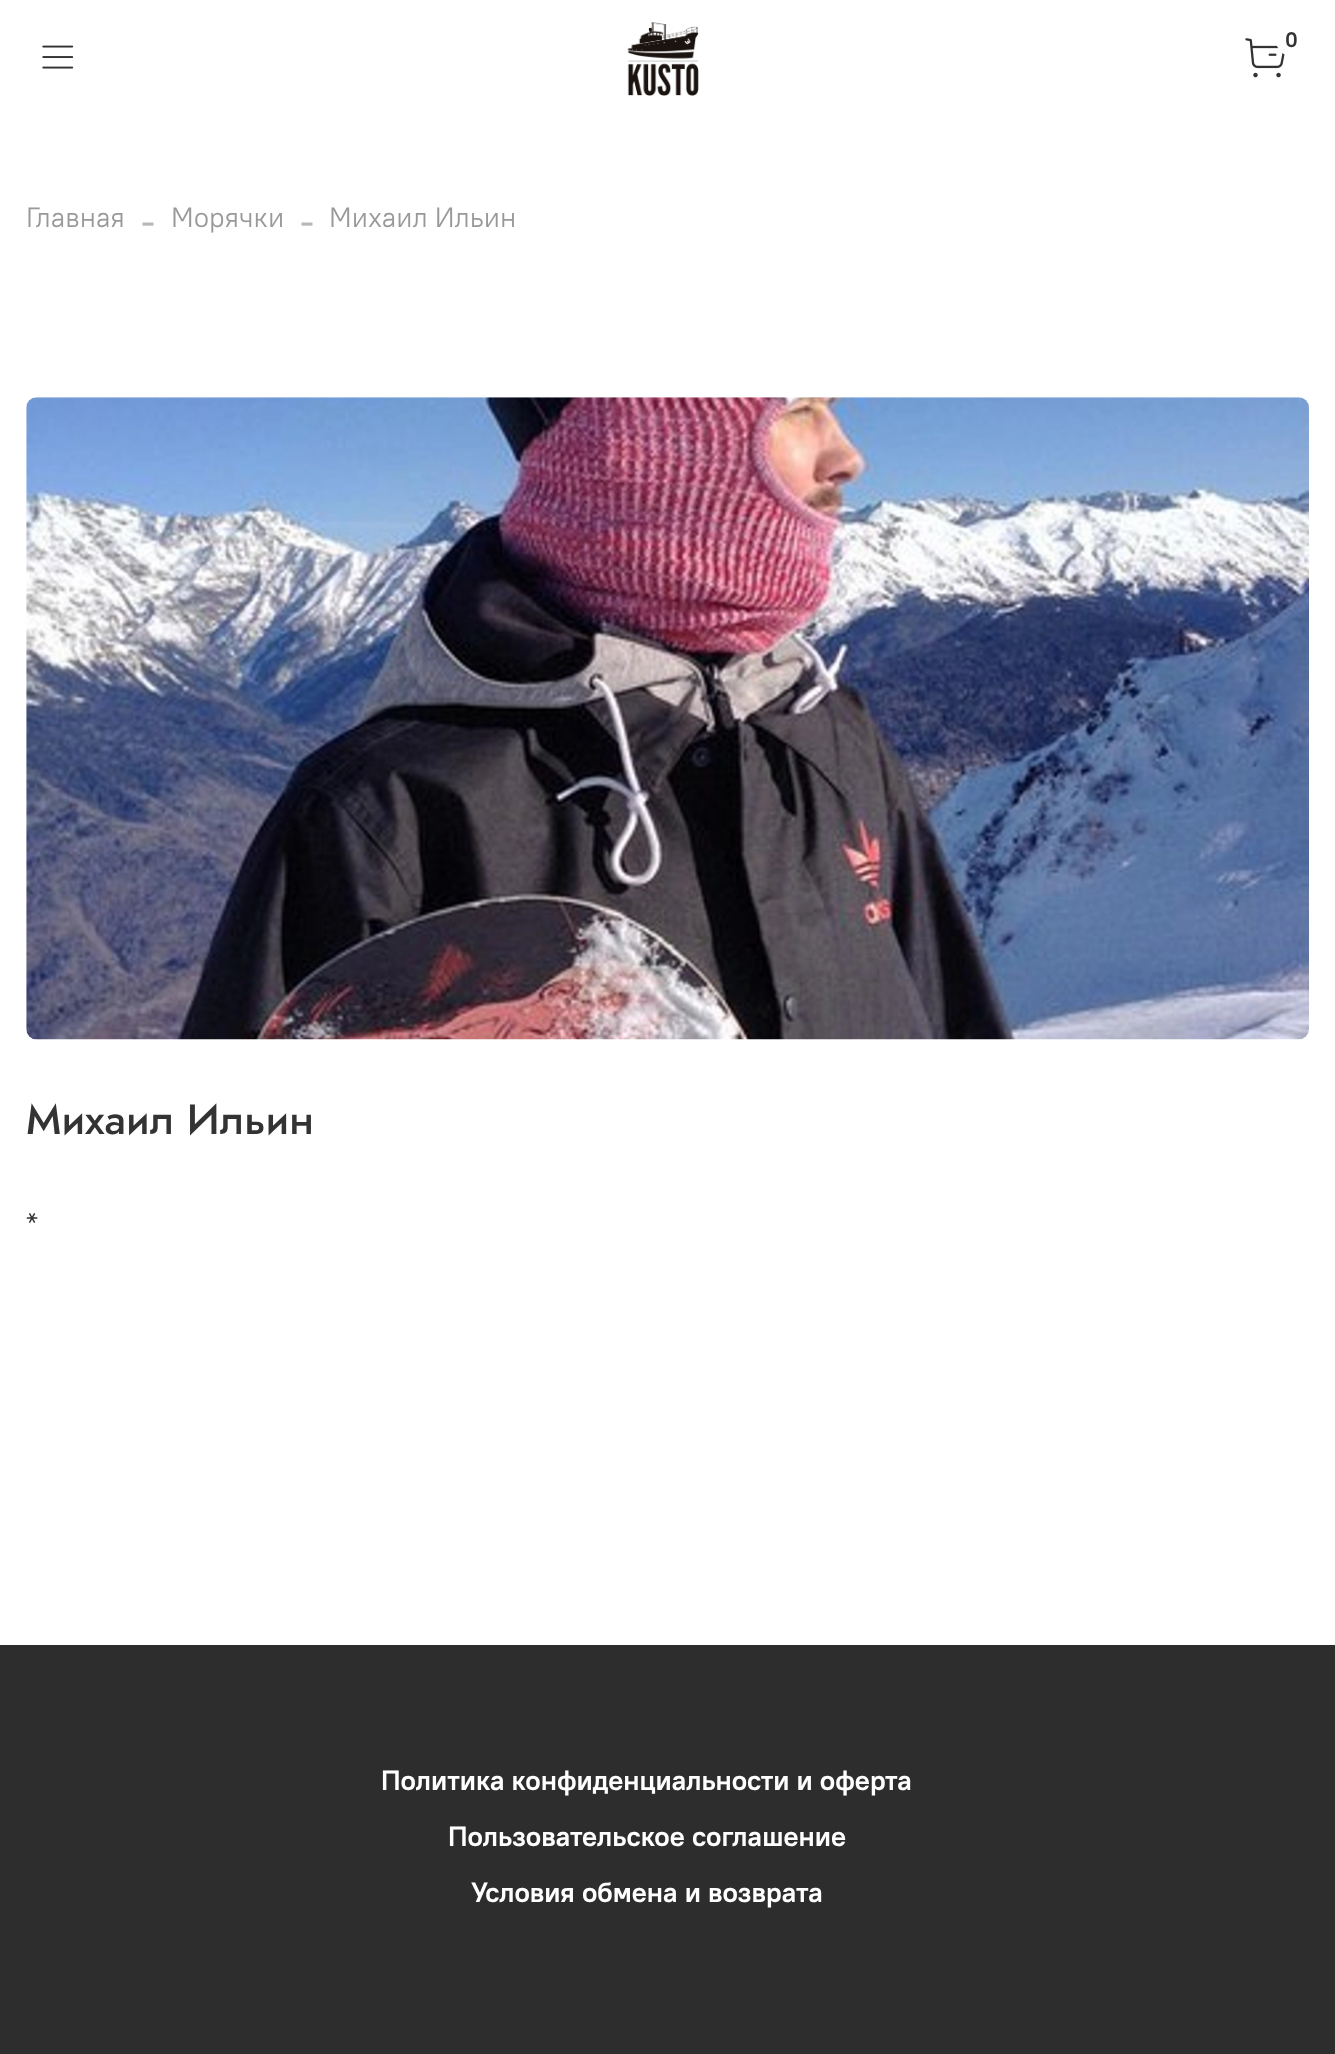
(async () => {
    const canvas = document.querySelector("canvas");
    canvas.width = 1335;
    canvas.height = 2054;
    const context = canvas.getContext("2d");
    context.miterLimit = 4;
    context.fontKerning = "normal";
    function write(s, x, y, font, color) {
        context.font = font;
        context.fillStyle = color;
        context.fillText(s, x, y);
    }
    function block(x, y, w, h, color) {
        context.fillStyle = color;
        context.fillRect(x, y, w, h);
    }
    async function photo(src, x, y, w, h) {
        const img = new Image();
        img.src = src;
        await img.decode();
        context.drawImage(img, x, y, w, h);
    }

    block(0, 0, 1335, 2054, "rgb(255, 255, 255)");
    await photo("media/1.png", 627, 22, 72, 74);
    await photo("media/2.png", 1245, 38, 40, 40);
    context.beginPath();
    context.arc(1291.5, 40.5, 15.5, 0, Math.PI * 2);
    context.fill();
    write("0", 1285, 47, "bold 21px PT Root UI", "rgb(51, 51, 51)");
    await photo("media/3.png", 42, 45, 32, 24);
    write("Главная", 26, 227, "28px PT Root UI", "rgb(153, 153, 153)");
    write("-", 141, 234, "42px Liberation Serif", "rgb(184, 184, 184)");
    write("Морячки", 171, 227, "28px PT Root UI", "rgb(153, 153, 153)");
    write("-", 300, 234, "42px Liberation Serif", "rgb(184, 184, 184)");
    write("Михаил Ильин", 329, 227, "28px PT Root UI", "rgb(153, 153, 153)");
    await photo("media/4.png", 26, 397, 1283, 643);
    write("Михаил Ильин", 26, 1134, "500 42px Jost", "rgb(51, 51, 51)");
    write("*", 26, 1235, "31px PT Root UI", "rgb(51, 51, 51)");
    block(0, 1645, 1335, 409, "rgb(45, 45, 45)");
    write("Политика конфиденциальности и оферта", 381, 1790, "bold 28px PT Root UI", "rgb(255, 255, 255)");
    write("Пользовательское соглашение", 448, 1846, "bold 28px PT Root UI", "rgb(255, 255, 255)");
    write("Условия обмена и возврата", 471, 1902, "bold 28px PT Root UI", "rgb(255, 255, 255)");
})();
